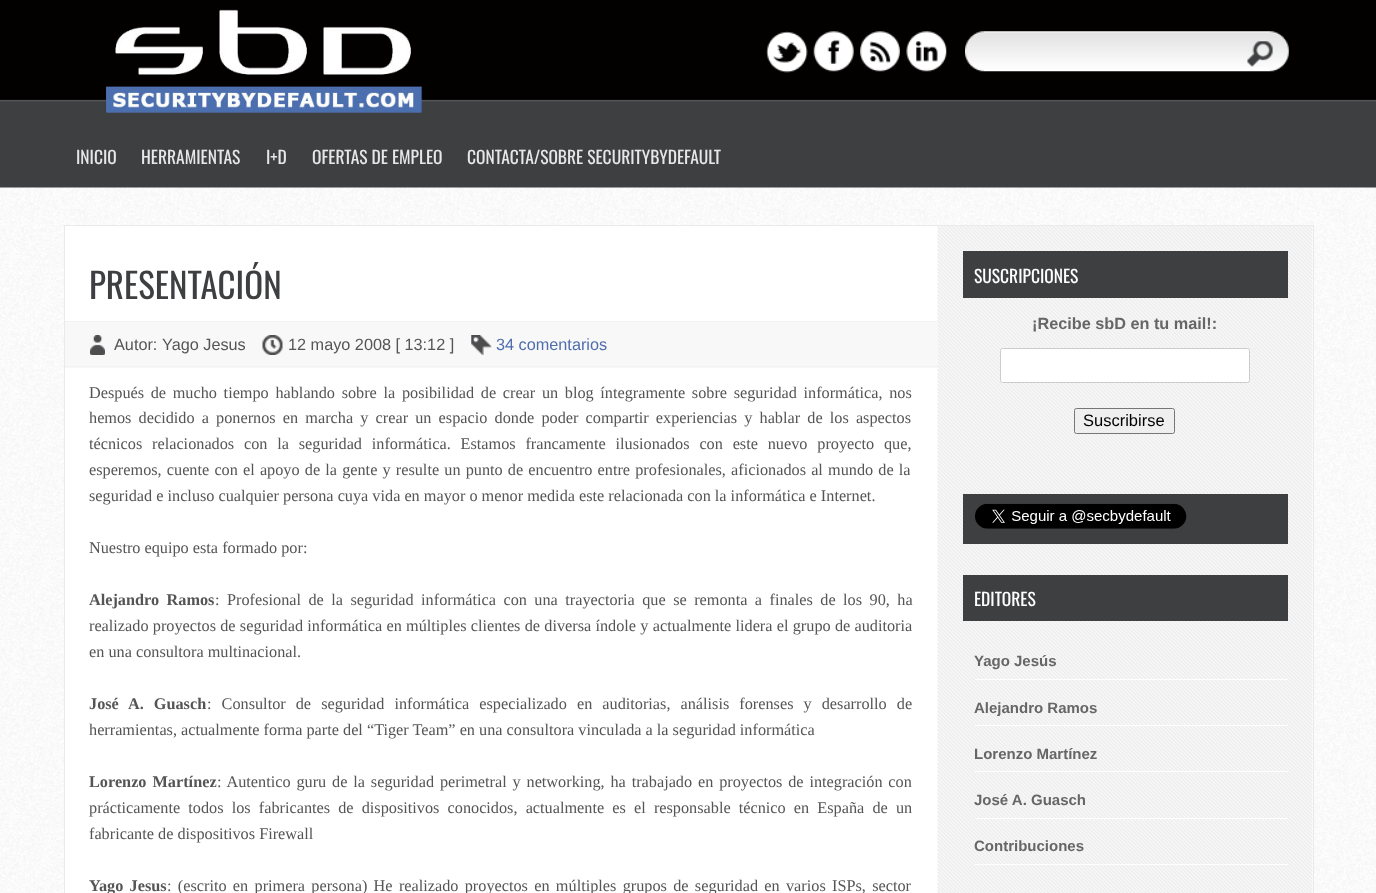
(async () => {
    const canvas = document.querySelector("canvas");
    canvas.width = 1376;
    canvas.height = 893;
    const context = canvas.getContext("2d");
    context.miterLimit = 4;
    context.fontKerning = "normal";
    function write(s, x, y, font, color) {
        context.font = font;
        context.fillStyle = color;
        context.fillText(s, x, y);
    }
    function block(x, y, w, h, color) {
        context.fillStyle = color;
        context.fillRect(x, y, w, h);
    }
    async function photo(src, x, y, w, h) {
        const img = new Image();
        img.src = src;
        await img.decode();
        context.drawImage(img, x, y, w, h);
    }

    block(0, 0, 1376, 893, "rgb(255, 255, 255)");
    await photo("media/1.png", 0, 187, 1376, 706);
    await photo("media/2.png", 0, 0, 1376, 188);
    await photo("media/3.png", 105, 9, 318, 104);
    await photo("media/4.png", 766, 31, 42, 42);
    await photo("media/5.png", 813, 31, 41, 41);
    await photo("media/6.png", 860, 31, 40, 41);
    await photo("media/7.png", 906, 31, 41, 41);
    await photo("media/8.png", 965, 31, 324, 41);
    await photo("media/9.png", 1247, 41, 26, 26);
    write("INICIO", 76, 164, "17.5px Oswald", "rgb(231, 231, 231)");
    write("HERRAMIENTAS", 141, 164, "17.5px Oswald", "rgb(231, 231, 231)");
    write("I+D", 266, 164, "17.5px Oswald", "rgb(231, 231, 231)");
    write("OFERTAS DE EMPLEO", 312, 164, "17.5px Oswald", "rgb(231, 231, 231)");
    write("CONTACTA/SOBRE SECURITYBYDEFAULT", 467, 164, "17.5px Oswald", "rgb(231, 231, 231)");
    block(65, 226, 1248, 667, "rgb(255, 255, 255)");
    await photo("media/10.png", 937, 226, 376, 667);
    context.strokeStyle = "rgb(234, 234, 234)";
    context.strokeRect(64.5, 225.5, 1249, 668);
    write("PRESENTACIÓN", 89, 299, "35px Oswald", "rgb(62, 63, 65)");
    block(65, 322, 873, 46, "rgb(248, 248, 248)");
    block(65, 321, 873, 1, "rgb(242, 242, 242)");
    block(65, 366, 873, 1, "rgb(242, 242, 242)");
    await photo("media/11.png", 90, 335, 15, 20);
    write("Autor:", 114, 350, "16.25px Liberation Sans", "rgb(85, 85, 85)");
    write("Yago Jesus", 162, 350, "16.25px Liberation Sans", "rgb(85, 85, 85)");
    await photo("media/12.png", 262, 335, 21, 20);
    write("12 mayo 2008 [ 13:12 ]", 288, 350, "16.25px Liberation Sans", "rgb(85, 85, 85)");
    await photo("media/13.png", 471, 335, 21, 20);
    write("34 comentarios", 496, 350, "16.25px Liberation Sans", "rgb(78, 109, 173)");
    context.wordSpacing = "2.6px";
    write("Después de mucho tiempo hablando sobre la posibilidad de crear un blog íntegramente sobre seguridad informática, nos", 89, 398, "16.25px Liberation Serif", "rgb(85, 85, 85)");
    context.wordSpacing = "3.1px";
    write("hemos decidido a ponernos en marcha y crear un espacio donde poder compartir experiencias y hablar de los aspectos", 89, 423, "16.25px Liberation Serif", "rgb(85, 85, 85)");
    context.wordSpacing = "5.75px";
    write("técnicos relacionados con la seguridad informática. Estamos francamente ilusionados con este nuevo proyecto que,", 89, 449, "16.25px Liberation Serif", "rgb(85, 85, 85)");
    context.wordSpacing = "1.1px";
    write("esperemos, cuente con el apoyo de la gente y resulte un punto de encuentro entre profesionales, aficionados al mundo de la", 89, 475, "16.25px Liberation Serif", "rgb(85, 85, 85)");
    context.wordSpacing = "0px";
    write("seguridad e incluso cualquier persona cuya vida en mayor o menor medida este relacionada con la informática e Internet.", 89, 501, "16.25px Liberation Serif", "rgb(85, 85, 85)");
    write("Nuestro equipo esta formado por:", 89, 553, "16.25px Liberation Serif", "rgb(85, 85, 85)");
    context.wordSpacing = "3.4px";
    write("Alejandro Ramos", 89, 605, "bold 16.25px Liberation Serif", "rgb(85, 85, 85)");
    write(": Profesional de la seguridad informática con una trayectoria que se remonta a finales de los 90, ha", 215, 605, "16.25px Liberation Serif", "rgb(85, 85, 85)");
    context.wordSpacing = "0.2px";
    write("realizado proyectos de seguridad informática en múltiples clientes de diversa índole y actualmente lidera el grupo de auditoria", 89, 631, "16.25px Liberation Serif", "rgb(85, 85, 85)");
    context.wordSpacing = "0px";
    write("en una consultora multinacional.", 89, 657, "16.25px Liberation Serif", "rgb(85, 85, 85)");
    context.wordSpacing = "6px";
    write("José A. Guasch", 89, 709, "bold 16.25px Liberation Serif", "rgb(85, 85, 85)");
    write(": Consultor de seguridad informática especializado en auditorias, análisis forenses y desarrollo de", 207, 709, "16.25px Liberation Serif", "rgb(85, 85, 85)");
    context.wordSpacing = "0px";
    write("herramientas, actualmente forma parte del “Tiger Team” en una consultora vinculada a la seguridad informática", 89, 735, "16.25px Liberation Serif", "rgb(85, 85, 85)");
    context.wordSpacing = "2px";
    write("Lorenzo Martínez", 89, 787, "bold 16.25px Liberation Serif", "rgb(85, 85, 85)");
    context.wordSpacing = "1.8px";
    write(": Autentico guru de la seguridad perimetral y networking, ha trabajado en proyectos de integración con", 217, 787, "16.25px Liberation Serif", "rgb(85, 85, 85)");
    context.wordSpacing = "4.1px";
    write("prácticamente todos los fabricantes de dispositivos conocidos, actualmente es el responsable técnico en España de un", 89, 813, "16.25px Liberation Serif", "rgb(85, 85, 85)");
    context.wordSpacing = "0px";
    write("fabricante de dispositivos Firewall", 89, 839, "16.25px Liberation Serif", "rgb(85, 85, 85)");
    context.wordSpacing = "2.25px";
    write("Yago Jesus", 89, 891, "bold 16.25px Liberation Serif", "rgb(85, 85, 85)");
    write(": (escrito en primera persona) He realizado proyectos en múltiples grupos de seguridad en varios ISPs, sector", 167, 891, "16.25px Liberation Serif", "rgb(85, 85, 85)");
    block(963, 251, 325, 47, "rgb(62, 63, 65)");
    context.wordSpacing = "0px";
    write("SUSCRIPCIONES", 974, 283, "17.5px Oswald", "rgb(255, 255, 255)");
    write("¡Recibe sbD en tu mail!:", 1032, 329, "bold 16.25px Liberation Sans", "rgb(102, 102, 102)");
    context.fillStyle = "rgb(255, 255, 255)";
    context.beginPath();
    context.roundRect(1000.5, 348.5, 249, 34, 2);
    context.fill();
    context.strokeStyle = "rgb(204, 204, 204)";
    context.stroke();
    context.fillStyle = "rgb(239, 239, 239)";
    context.beginPath();
    context.roundRect(1074.5, 408.5, 100, 25, 2);
    context.fill();
    context.strokeStyle = "rgb(118, 118, 118)";
    context.stroke();
    write("Suscribirse", 1083, 426, "16.5px Liberation Sans", "rgb(0, 0, 0)");
    block(963, 494, 325, 50, "rgb(62, 63, 65)");
    await photo("media/14.png", 975, 503, 212, 26);
    block(963, 575, 325, 46, "rgb(62, 63, 65)");
    write("EDITORES", 974, 606, "17.5px Oswald", "rgb(255, 255, 255)");
    block(975, 679, 313, 1, "rgb(255, 255, 255)");
    write("Yago Jesús", 974, 666, "bold 15px Liberation Sans", "rgb(102, 102, 102)");
    block(975, 725, 313, 1, "rgb(255, 255, 255)");
    write("Alejandro Ramos", 974, 713, "bold 15px Liberation Sans", "rgb(102, 102, 102)");
    block(975, 771, 313, 1, "rgb(255, 255, 255)");
    write("Lorenzo Martínez", 974, 759, "bold 15px Liberation Sans", "rgb(102, 102, 102)");
    block(975, 818, 313, 1, "rgb(255, 255, 255)");
    write("José A. Guasch", 974, 805, "bold 15px Liberation Sans", "rgb(102, 102, 102)");
    block(975, 864, 313, 1, "rgb(255, 255, 255)");
    write("Contribuciones", 974, 851, "bold 15px Liberation Sans", "rgb(102, 102, 102)");
})();
